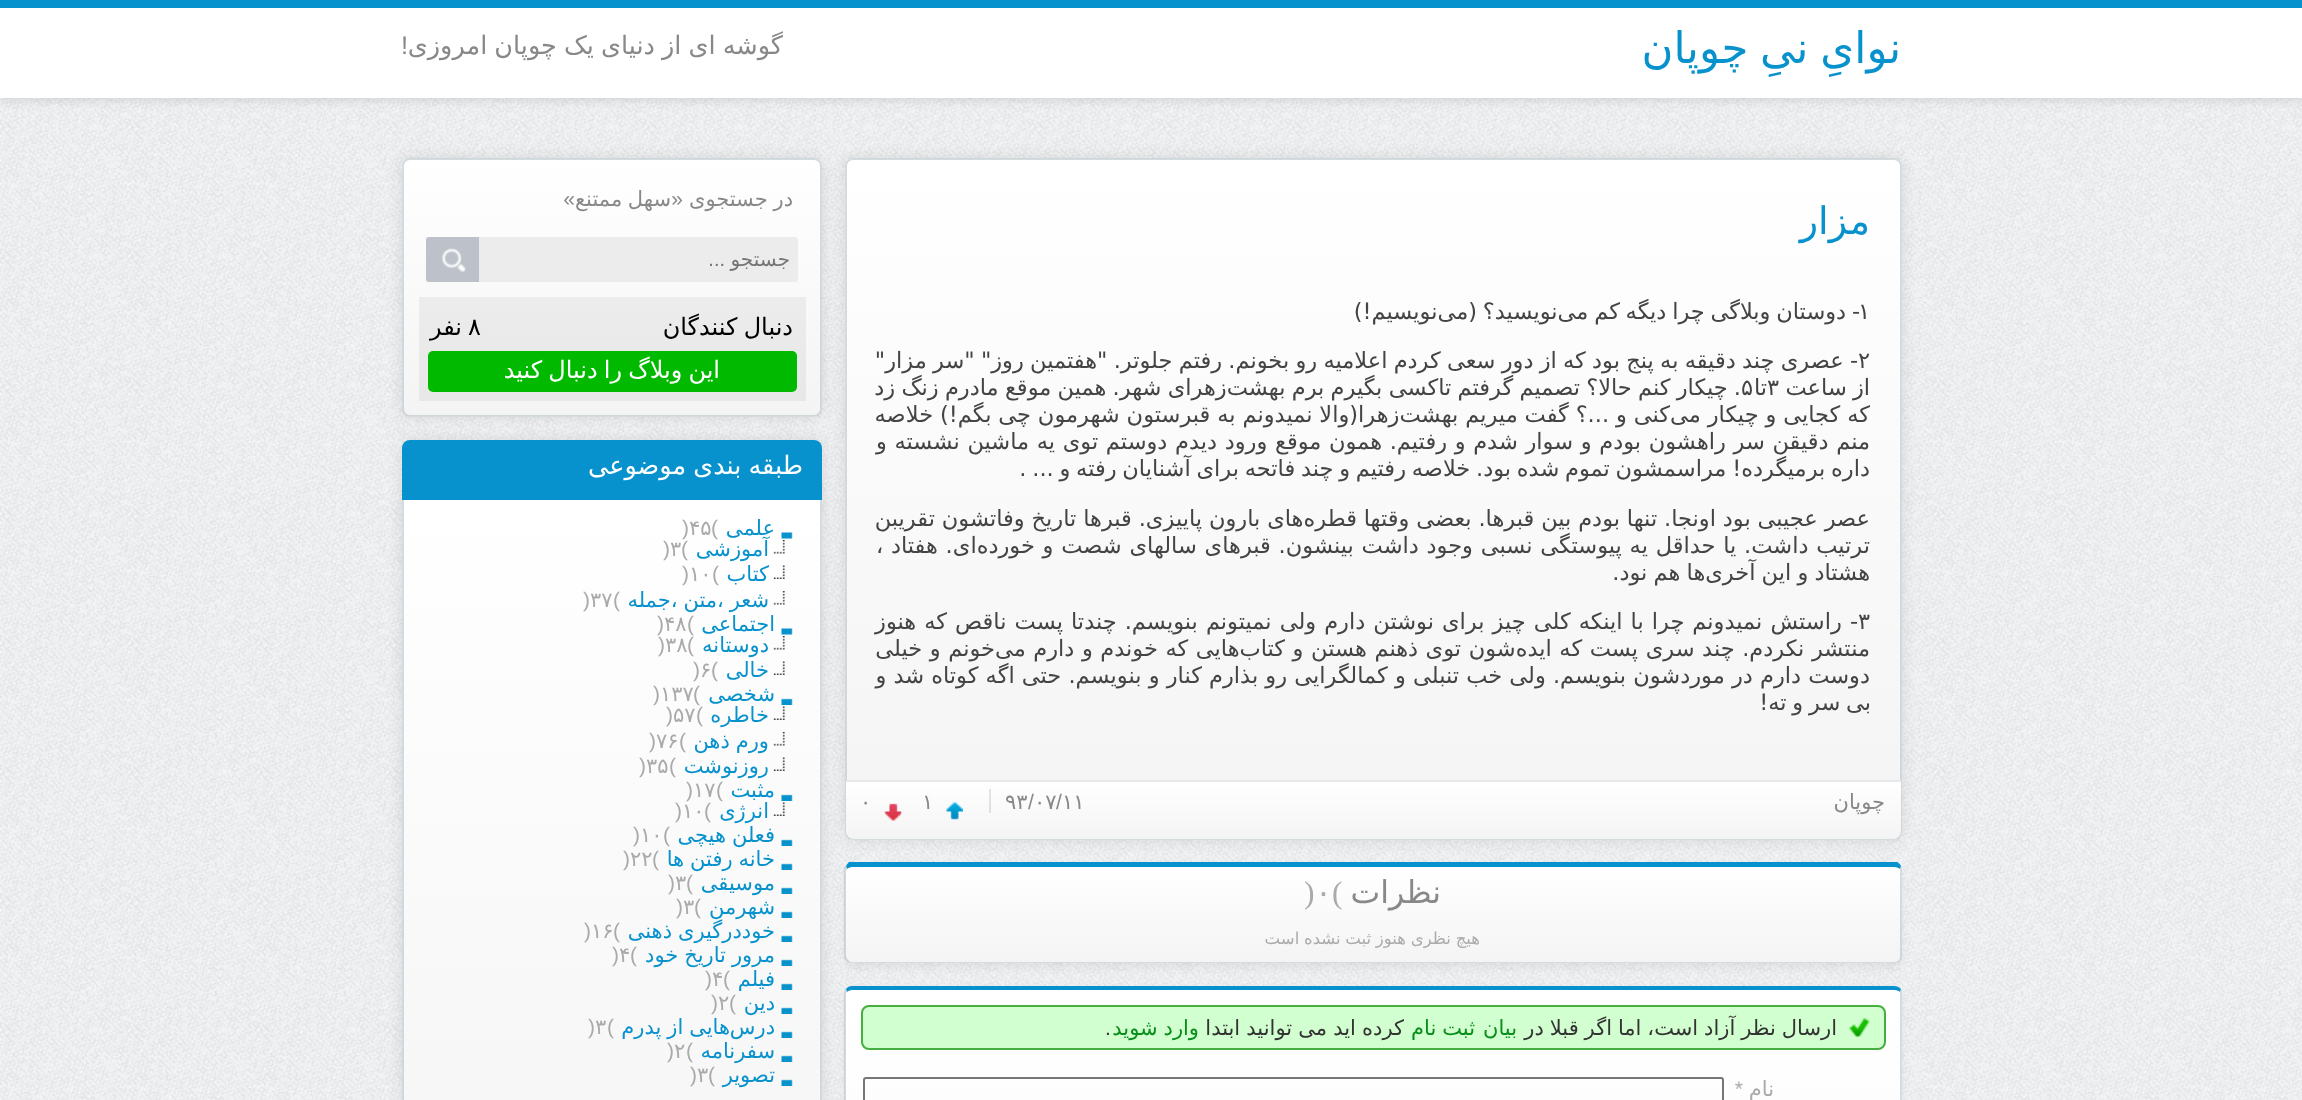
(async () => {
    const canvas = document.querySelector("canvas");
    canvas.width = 2302;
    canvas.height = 1100;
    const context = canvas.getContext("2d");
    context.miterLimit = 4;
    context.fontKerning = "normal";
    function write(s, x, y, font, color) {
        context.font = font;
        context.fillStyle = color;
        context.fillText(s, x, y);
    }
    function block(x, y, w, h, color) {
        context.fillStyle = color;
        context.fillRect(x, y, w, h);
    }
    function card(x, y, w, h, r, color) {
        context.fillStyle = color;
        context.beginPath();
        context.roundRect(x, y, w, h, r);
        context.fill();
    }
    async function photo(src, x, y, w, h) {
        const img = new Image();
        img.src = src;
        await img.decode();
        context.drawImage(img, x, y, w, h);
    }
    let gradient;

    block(0, 0, 2302, 1100, "rgb(255, 255, 255)");
    await photo("media/1.png", 0, 98, 2302, 1002);
    context.fillStyle = "rgba(0, 0, 0, 0.1)";
    context.filter = "blur(4.5px)";
    context.beginPath();
    context.rect(0, 3, 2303, 98);
    context.fill();
    context.filter = "none";
    block(0, 8, 2302, 90, "rgb(255, 255, 255)");
    block(0, 0, 2302, 8, "rgb(8, 146, 205)");
    context.wordSpacing = "-2px";
    context.direction = "rtl";
    write("نوایِ نیِ چوپان", 1901, 63, "43.5px DejaVu Sans", "rgb(8, 146, 205)");
    context.wordSpacing = "-1px";
    write("گوشه ای از دنیای یک چوپان امروزی", 783, 54, "25.5px DejaVu Sans", "rgb(136, 136, 136)");
    context.wordSpacing = "0px";
    write("!", 408, 54, "25.5px Liberation Sans", "rgb(136, 136, 136)");
    context.fillStyle = "rgba(117, 100, 100, 0.1)";
    context.filter = "blur(4px)";
    context.beginPath();
    context.roundRect(845, 867, 1057, 101, 8);
    context.fill();
    context.filter = "none";
    context.save();
    context.beginPath();
    context.roundRect(845, 863, 1057, 100, 8);
    context.clip();
    gradient = context.createLinearGradient(1373, 867, 1373, 962);
    gradient.addColorStop(0, "rgb(255, 255, 255)");
    gradient.addColorStop(1, "rgb(244, 244, 244)");
    context.fillStyle = gradient;
    context.fillRect(845, 867, 1057, 95);
    context.restore();
    context.fillStyle = "rgb(8, 146, 205)";
    context.beginPath();
    context.moveTo(852, 867);
    context.bezierCurveTo(850, 867, 848, 868, 847, 869);
    context.lineTo(846, 866);
    context.bezierCurveTo(847, 864, 848, 863, 849, 862);
    context.lineTo(1897, 862);
    context.bezierCurveTo(1899, 863, 1900, 864, 1901, 866);
    context.lineTo(1900, 869);
    context.bezierCurveTo(1899, 868, 1897, 867, 1894, 867);
    context.closePath();
    context.fill();
    context.fillStyle = "rgba(0, 0, 0, 0.1)";
    context.filter = "blur(7.5px)";
    context.beginPath();
    context.roundRect(402, 158, 420, 259, 8);
    context.fill();
    context.filter = "none";
    context.save();
    context.beginPath();
    context.roundRect(402, 158, 420, 259, 8);
    context.clip();
    gradient = context.createLinearGradient(612, -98, 612, 159);
    gradient.addColorStop(0, "rgb(255, 255, 255)");
    gradient.addColorStop(1, "rgb(244, 244, 244)");
    context.fillStyle = gradient;
    context.fillRect(402, 158, 420, 1);
    gradient = context.createLinearGradient(612, 159, 612, 416);
    gradient.addColorStop(0, "rgb(255, 255, 255)");
    gradient.addColorStop(1, "rgb(244, 244, 244)");
    context.fillStyle = gradient;
    context.fillRect(402, 159, 420, 257);
    gradient = context.createLinearGradient(612, 416, 612, 672);
    gradient.addColorStop(0, "rgb(255, 255, 255)");
    gradient.addColorStop(1, "rgb(244, 244, 244)");
    context.fillStyle = gradient;
    context.fillRect(402, 416, 420, 1);
    context.restore();
    context.beginPath();
    context.roundRect(403, 159, 418, 257, 7);
    context.strokeStyle = "rgba(172, 186, 192, 0.5)";
    context.lineWidth = 2;
    context.stroke();
    context.save();
    context.beginPath();
    context.roundRect(845, 863, 1057, 100, 8);
    context.clip();
    gradient = context.createLinearGradient(1373, 962, 1373, 1056);
    gradient.addColorStop(0, "rgb(255, 255, 255)");
    gradient.addColorStop(1, "rgb(244, 244, 244)");
    context.fillStyle = gradient;
    context.fillRect(845, 962, 1057, 1);
    context.restore();
    context.fillStyle = "rgba(172, 186, 192, 0.5)";
    context.beginPath();
    context.moveTo(1902, 956);
    context.lineTo(1902, 870);
    context.bezierCurveTo(1902, 869, 1902, 867, 1901, 866);
    context.lineTo(1900, 869);
    context.lineTo(1900, 957);
    context.lineTo(1899, 960);
    context.lineTo(1900, 961);
    context.bezierCurveTo(1901, 960, 1902, 958, 1902, 956);
    context.closePath();
    context.fill();
    context.beginPath();
    context.moveTo(852, 963);
    context.lineTo(1894, 963);
    context.bezierCurveTo(1897, 963, 1899, 962, 1900, 961);
    context.lineTo(1899, 960);
    context.bezierCurveTo(1898, 961, 1896, 962, 1894, 962);
    context.lineTo(852, 962);
    context.bezierCurveTo(850, 962, 849, 961, 848, 960);
    context.lineTo(846, 961);
    context.bezierCurveTo(848, 962, 850, 963, 852, 963);
    context.closePath();
    context.fill();
    context.beginPath();
    context.moveTo(844, 867);
    context.lineTo(846, 866);
    context.lineTo(847, 869);
    context.lineTo(846, 870);
    context.lineTo(846, 956);
    context.bezierCurveTo(846, 957, 847, 959, 848, 960);
    context.lineTo(846, 961);
    context.lineTo(844, 958);
    context.closePath();
    context.fill();
    context.fillStyle = "rgba(117, 100, 100, 0.1)";
    context.filter = "blur(4px)";
    context.beginPath();
    context.roundRect(845, 990, 1057, 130, 8);
    context.fill();
    context.filter = "none";
    context.save();
    context.beginPath();
    context.roundRect(845, 986, 1057, 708, 8);
    context.clip();
    gradient = context.createLinearGradient(1373, 990, 1373, 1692);
    gradient.addColorStop(0, "rgb(255, 255, 255)");
    gradient.addColorStop(1, "rgb(244, 244, 244)");
    context.fillStyle = gradient;
    context.fillRect(845, 990, 1057, 110);
    context.restore();
    context.fillStyle = "rgb(8, 146, 205)";
    context.beginPath();
    context.moveTo(852, 986);
    context.bezierCurveTo(850, 986, 847, 987, 846, 989);
    context.lineTo(847, 992);
    context.bezierCurveTo(848, 991, 850, 990, 852, 990);
    context.lineTo(1894, 990);
    context.bezierCurveTo(1897, 990, 1899, 991, 1900, 992);
    context.lineTo(1901, 989);
    context.bezierCurveTo(1899, 987, 1897, 986, 1894, 986);
    context.closePath();
    context.fill();
    context.fillStyle = "rgba(172, 186, 192, 0.5)";
    context.beginPath();
    context.moveTo(844, 991);
    context.lineTo(846, 989);
    context.lineTo(847, 992);
    context.lineTo(846, 993);
    context.lineTo(846, 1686);
    context.bezierCurveTo(846, 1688, 847, 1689, 848, 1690);
    context.lineTo(846, 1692);
    context.lineTo(844, 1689);
    context.closePath();
    context.fill();
    context.fillStyle = "rgba(0, 0, 0, 0.1)";
    context.filter = "blur(7.5px)";
    context.beginPath();
    context.roundRect(402, 440, 420, 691, 8);
    context.fill();
    context.filter = "none";
    context.fillStyle = "rgb(8, 146, 205)";
    context.beginPath();
    context.roundRect(402, 440, 420, 60, [8, 8, 0, 0]);
    context.fill();
    gradient = context.createLinearGradient(612, 500, 612, 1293);
    gradient.addColorStop(0, "rgb(255, 255, 255)");
    gradient.addColorStop(1, "rgb(244, 244, 244)");
    context.fillStyle = gradient;
    context.fillRect(402, 500, 420, 600);
    context.fillStyle = "rgba(172, 186, 192, 0.5)";
    context.beginPath();
    context.moveTo(402, 500);
    context.lineTo(822, 500);
    context.lineTo(822, 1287);
    context.bezierCurveTo(822, 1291, 819, 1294, 814, 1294);
    context.lineTo(410, 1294);
    context.bezierCurveTo(405, 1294, 402, 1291, 402, 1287);
    context.closePath();
    context.moveTo(404, 500);
    context.lineTo(820, 500);
    context.lineTo(820, 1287);
    context.bezierCurveTo(820, 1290, 818, 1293, 814, 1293);
    context.lineTo(410, 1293);
    context.bezierCurveTo(406, 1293, 404, 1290, 404, 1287);
    context.closePath();
    context.fill("evenodd");
    context.fillStyle = "rgba(0, 0, 0, 0.1)";
    context.filter = "blur(7.5px)";
    context.beginPath();
    context.roundRect(845, 158, 1057, 682, 8);
    context.fill();
    context.filter = "none";
    context.save();
    context.beginPath();
    context.roundRect(845, 158, 1057, 682, 8);
    context.clip();
    gradient = context.createLinearGradient(1373, -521, 1373, 159);
    gradient.addColorStop(0, "rgb(255, 255, 255)");
    gradient.addColorStop(1, "rgb(244, 244, 244)");
    context.fillStyle = gradient;
    context.fillRect(845, 158, 1057, 1);
    gradient = context.createLinearGradient(1373, 159, 1373, 839);
    gradient.addColorStop(0, "rgb(255, 255, 255)");
    gradient.addColorStop(1, "rgb(244, 244, 244)");
    context.fillStyle = gradient;
    context.fillRect(845, 159, 1057, 680);
    gradient = context.createLinearGradient(1373, 839, 1373, 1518);
    gradient.addColorStop(0, "rgb(255, 255, 255)");
    gradient.addColorStop(1, "rgb(244, 244, 244)");
    context.fillStyle = gradient;
    context.fillRect(845, 839, 1057, 1);
    context.restore();
    context.beginPath();
    context.roundRect(846, 159, 1055, 680, 7);
    context.stroke();
    write("مزار", 1870, 234, "38px DejaVu Sans", "rgb(8, 146, 205)");
    context.direction = "ltr";
    write("۱", 1858, 319, "22.5px DejaVu Sans", "rgb(68, 68, 68)");
    context.wordSpacing = "-1.4px";
    context.direction = "rtl";
    write("- دوستان وبلاگی چرا دیگه کم می‌نویسید؟ (می‌نویسیم!)", 1860, 319, "22.5px DejaVu Sans", "rgb(68, 68, 68)");
    context.wordSpacing = "0px";
    context.direction = "ltr";
    write("۲", 1858, 368, "22.5px DejaVu Sans", "rgb(68, 68, 68)");
    context.wordSpacing = "-0.9px";
    context.direction = "rtl";
    write("- عصری چند دقیقه به پنج بود که از دور سعی کردم اعلامیه رو بخونم. رفتم جلوتر. \"هفتمین روز\" \"سر مزار\"", 1858, 368, "22.5px DejaVu Sans", "rgb(68, 68, 68)");
    context.wordSpacing = "-1px";
    write("از ساعت", 1870, 395, "22.5px DejaVu Sans", "rgb(68, 68, 68)");
    context.wordSpacing = "0px";
    context.direction = "ltr";
    write("۳", 1767, 395, "22.5px DejaVu Sans", "rgb(68, 68, 68)");
    context.direction = "rtl";
    write("تا", 1767, 395, "22.5px DejaVu Sans", "rgb(68, 68, 68)");
    context.direction = "ltr";
    write("۵", 1741, 395, "22.5px DejaVu Sans", "rgb(68, 68, 68)");
    context.wordSpacing = "-0.9px";
    context.direction = "rtl";
    write(". چیکار کنم حالا؟ تصمیم گرفتم تاکسی بگیرم برم بهشت‌زهرای شهر. همین موقع مادرم زنگ زد", 1741, 395, "22.5px DejaVu Sans", "rgb(68, 68, 68)");
    context.wordSpacing = "-0.25px";
    write("که کجایی و چیکار می‌کنی و ...؟ گفت میریم بهشت‌زهرا(والا نمیدونم به قبرستون شهرمون چی‌ بگم!) خلاصه", 1870, 422, "22.5px DejaVu Sans", "rgb(68, 68, 68)");
    context.wordSpacing = "0.5px";
    write("منم دقیقن سر راهشون بودم و سوار شدم و رفتیم. همون موقع ورود دیدم دوستم توی یه ماشین نشسته و", 1870, 449, "22.5px DejaVu Sans", "rgb(68, 68, 68)");
    context.wordSpacing = "-1.4px";
    write("داره برمیگرده! مراسمشون تموم شده بود. خلاصه رفتیم و چند فاتحه برای آشنایان رفته و ... .", 1870, 476, "22.5px DejaVu Sans", "rgb(68, 68, 68)");
    context.wordSpacing = "-0.3px";
    write("عصر عجیبی بود اونجا. تنها بودم بین قبرها. بعضی وقتها قطره‌های بارون پاییزی. قبرها تاریخ وفاتشون تقریبن", 1870, 526, "22.5px DejaVu Sans", "rgb(68, 68, 68)");
    context.wordSpacing = "0.6px";
    write("ترتیب داشت. یا حداقل یه پیوستگی نسبی وجود داشت بینشون. قبرهای سالهای شصت و خورده‌ای. هفتاد ،", 1870, 553, "22.5px DejaVu Sans", "rgb(68, 68, 68)");
    context.wordSpacing = "-1px";
    write("هشتاد و این آخری‌ها هم نود.", 1870, 580, "22.5px DejaVu Sans", "rgb(68, 68, 68)");
    context.wordSpacing = "0px";
    context.direction = "ltr";
    write("۳", 1858, 629, "22.5px DejaVu Sans", "rgb(68, 68, 68)");
    context.wordSpacing = "0.9px";
    context.direction = "rtl";
    write("- راستش نمیدونم چرا با اینکه کلی چیز برای نوشتن دارم ولی نمیتونم بنویسم. چندتا پست ناقص که هنوز", 1858, 629, "22.5px DejaVu Sans", "rgb(68, 68, 68)");
    context.wordSpacing = "0.4px";
    write("منتشر نکردم. چند سری پست که ایده‌شون توی ذهنم هستن و کتاب‌هایی که خوندم و دارم می‌خونم و خیلی", 1870, 656, "22.5px DejaVu Sans", "rgb(68, 68, 68)");
    context.wordSpacing = "0px";
    write("دوست دارم در موردشون بنویسم. ولی خب تنبلی و کمالگرایی رو بذارم کنار و بنویسم. حتی اگه کوتاه شد و", 1870, 683, "22.5px DejaVu Sans", "rgb(68, 68, 68)");
    context.wordSpacing = "-1.4px";
    write("بی‌ سر و ته!", 1871, 710, "22.5px DejaVu Sans", "rgb(68, 68, 68)");
    gradient = context.createLinearGradient(1373, 782, 1373, 839);
    gradient.addColorStop(0, "rgb(255, 255, 255)");
    gradient.addColorStop(1, "rgb(244, 244, 244)");
    context.fillStyle = gradient;
    context.beginPath();
    context.roundRect(846, 782, 1055, 57, [0, 0, 8, 8]);
    context.fill();
    block(846, 780, 1055, 2, "rgb(230, 232, 234)");
    context.wordSpacing = "0px";
    write("چوپان", 1885, 809, "21px DejaVu Sans", "rgb(136, 136, 136)");
    context.direction = "ltr";
    write("۱۱", 1062, 809, "21px DejaVu Sans", "rgb(136, 136, 136)");
    write("/", 1056, 809, "21px Liberation Sans", "rgb(136, 136, 136)");
    write("۰۷", 1034, 809, "21px DejaVu Sans", "rgb(136, 136, 136)");
    write("۹۳", 1005, 809, "21px DejaVu Sans", "rgb(136, 136, 136)");
    write("/", 1028, 809, "21px Liberation Sans", "rgb(136, 136, 136)");
    block(989, 789, 2, 24, "rgba(0, 0, 0, 0.1)");
    await photo("media/2.png", 946, 802, 17, 18);
    write("۱", 922, 809, "21px DejaVu Sans", "rgb(136, 136, 136)");
    await photo("media/3.png", 884, 803, 18, 18);
    write("۰", 860, 809, "21px DejaVu Sans", "rgb(136, 136, 136)");
    context.direction = "rtl";
    write("نظرات", 1441, 903, "31.5px DejaVu Sans", "rgb(136, 136, 136)");
    context.direction = "ltr";
    write("(", 1332, 903, "31.5px Liberation Serif", "rgb(170, 170, 170)");
    write("۰", 1315, 903, "31.5px DejaVu Sans", "rgb(170, 170, 170)");
    write(")", 1304, 903, "31.5px Liberation Serif", "rgb(170, 170, 170)");
    context.wordSpacing = "-0.5px";
    context.direction = "rtl";
    write("هیچ نظری هنوز ثبت نشده است", 1480, 944, "16.5px DejaVu Sans", "rgb(170, 170, 170)");
    context.fillStyle = "rgba(172, 186, 192, 0.5)";
    context.beginPath();
    context.moveTo(1901, 989);
    context.bezierCurveTo(1902, 990, 1902, 992, 1902, 993);
    context.lineTo(1902, 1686);
    context.bezierCurveTo(1902, 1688, 1901, 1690, 1900, 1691);
    context.lineTo(1899, 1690);
    context.bezierCurveTo(1900, 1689, 1900, 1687, 1900, 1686);
    context.lineTo(1900, 992);
    context.closePath();
    context.fill();
    context.fillStyle = "rgb(210, 255, 207)";
    context.beginPath();
    context.roundRect(862, 1006, 1023, 43, 7);
    context.fill();
    context.strokeStyle = "rgb(71, 175, 65)";
    context.stroke();
    await photo("media/4.png", 1849, 1018, 21, 19);
    context.wordSpacing = "-0.75px";
    write("ارسال نظر آزاد است، اما اگر قبلا در", 1837, 1035, "21px DejaVu Sans", "rgb(51, 51, 51)");
    context.wordSpacing = "0px";
    write("بیان", 1517, 1035, "21px DejaVu Sans", "rgb(8, 143, 27)");
    context.wordSpacing = "-0.75px";
    write("ثبت نام", 1475, 1035, "21px DejaVu Sans", "rgb(8, 143, 27)");
    context.wordSpacing = "-0.5px";
    write("کرده اید می توانید ابتدا", 1404, 1035, "21px DejaVu Sans", "rgb(51, 51, 51)");
    context.wordSpacing = "-0.75px";
    write("وارد شوید", 1199, 1035, "21px DejaVu Sans", "rgb(8, 143, 27)");
    context.wordSpacing = "0px";
    context.direction = "ltr";
    write(".", 1105, 1035, "21px Liberation Sans", "rgb(51, 51, 51)");
    context.direction = "rtl";
    write("نام", 1774, 1096, "21px DejaVu Sans", "rgb(170, 170, 170)");
    write("*", 1743, 1096, "21px Liberation Sans", "rgb(170, 170, 170)");
    context.beginPath();
    context.roundRect(864, 1078, 859, 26, 2);
    context.strokeStyle = "rgb(118, 118, 118)";
    context.stroke();
    context.wordSpacing = "-1px";
    write("در جستجوی", 793, 206, "21px DejaVu Sans", "rgb(136, 136, 136)");
    context.wordSpacing = "0px";
    write("«", 683, 206, "21px Liberation Sans", "rgb(136, 136, 136)");
    context.wordSpacing = "-1px";
    write("سهل ممتنع", 671, 206, "21px DejaVu Sans", "rgb(136, 136, 136)");
    context.wordSpacing = "0px";
    write("»", 575, 206, "21px Liberation Sans", "rgb(136, 136, 136)");
    card(426, 237, 372, 45, 3, "rgb(236, 236, 236)");
    write("جستجو", 790, 266, "20px DejaVu Sans", "rgb(117, 117, 117)");
    write("...", 725, 266, "20px Liberation Sans", "rgb(117, 117, 117)");
    context.fillStyle = "rgb(189, 194, 202)";
    context.beginPath();
    context.roundRect(426, 237, 53, 45, [3, 0, 0, 3]);
    context.fill();
    await photo("media/5.png", 442, 248, 24, 24);
    block(419, 297, 387, 104, "rgba(0, 0, 0, 0.05)");
    context.wordSpacing = "-1.5px";
    write("دنبال کنندگان", 793, 335, "24px DejaVu Sans", "rgb(0, 0, 0)");
    context.wordSpacing = "0px";
    context.direction = "ltr";
    write("۸", 468, 335, "24px DejaVu Sans", "rgb(0, 0, 0)");
    context.direction = "rtl";
    write("نفر", 462, 335, "24px DejaVu Sans", "rgb(0, 0, 0)");
    card(428, 351, 369, 41, 5, "rgb(1, 186, 0)");
    context.wordSpacing = "-1.5px";
    write("این وبلاگ را دنبال کنید", 720, 378, "24px DejaVu Sans", "rgb(255, 255, 255)");
    context.wordSpacing = "-1px";
    write("طبقه بندی موضوعی", 803, 474, "25.5px DejaVu Sans", "rgb(255, 255, 255)");
    await photo("media/6.png", 781, 532, 12, 7);
    context.wordSpacing = "0px";
    write("علمی", 775, 535, "21px DejaVu Sans", "rgb(8, 146, 205)");
    context.direction = "ltr";
    write("(", 711, 535, "21px Liberation Sans", "rgb(170, 170, 170)");
    write("۴۵", 689, 535, "21px DejaVu Sans", "rgb(170, 170, 170)");
    write(")", 682, 535, "21px Liberation Sans", "rgb(170, 170, 170)");
    await photo("media/7.png", 773, 540, 12, 14);
    context.direction = "rtl";
    write("آموزشی", 769, 556, "21px DejaVu Sans", "rgb(8, 146, 205)");
    context.direction = "ltr";
    write("(", 681, 556, "21px Liberation Sans", "rgb(170, 170, 170)");
    write("۳", 670, 556, "21px DejaVu Sans", "rgb(170, 170, 170)");
    write(")", 663, 556, "21px Liberation Sans", "rgb(170, 170, 170)");
    await photo("media/8.png", 773, 565, 12, 14);
    context.direction = "rtl";
    write("کتاب", 769, 581, "21px DejaVu Sans", "rgb(8, 146, 205)");
    context.direction = "ltr";
    write("(", 712, 581, "21px Liberation Sans", "rgb(170, 170, 170)");
    write("۱۰", 689, 581, "21px DejaVu Sans", "rgb(170, 170, 170)");
    write(")", 682, 581, "21px Liberation Sans", "rgb(170, 170, 170)");
    await photo("media/7.png", 773, 591, 12, 14);
    context.wordSpacing = "-0.75px";
    context.direction = "rtl";
    write("شعر ،متن ،جمله", 769, 607, "21px DejaVu Sans", "rgb(8, 146, 205)");
    context.wordSpacing = "0px";
    context.direction = "ltr";
    write("(", 613, 607, "21px Liberation Sans", "rgb(170, 170, 170)");
    write("۳۷", 590, 607, "21px DejaVu Sans", "rgb(170, 170, 170)");
    write(")", 583, 607, "21px Liberation Sans", "rgb(170, 170, 170)");
    await photo("media/9.png", 781, 628, 12, 7);
    context.direction = "rtl";
    write("اجتماعی", 775, 631, "21px DejaVu Sans", "rgb(8, 146, 205)");
    context.direction = "ltr";
    write("(", 687, 631, "21px Liberation Sans", "rgb(170, 170, 170)");
    write("۴۸", 664, 631, "21px DejaVu Sans", "rgb(170, 170, 170)");
    write(")", 657, 631, "21px Liberation Sans", "rgb(170, 170, 170)");
    await photo("media/10.png", 773, 636, 12, 14);
    context.direction = "rtl";
    write("دوستانه", 769, 652, "21px DejaVu Sans", "rgb(8, 146, 205)");
    context.direction = "ltr";
    write("(", 687, 652, "21px Liberation Sans", "rgb(170, 170, 170)");
    write("۳۸", 665, 652, "21px DejaVu Sans", "rgb(170, 170, 170)");
    write(")", 658, 652, "21px Liberation Sans", "rgb(170, 170, 170)");
    await photo("media/11.png", 773, 661, 12, 14);
    context.direction = "rtl";
    write("خالی", 769, 677, "21px DejaVu Sans", "rgb(8, 146, 205)");
    context.direction = "ltr";
    write("(", 711, 677, "21px Liberation Sans", "rgb(170, 170, 170)");
    write("۶", 700, 677, "21px DejaVu Sans", "rgb(170, 170, 170)");
    write(")", 693, 677, "21px Liberation Sans", "rgb(170, 170, 170)");
    await photo("media/12.png", 781, 698, 12, 7);
    context.direction = "rtl";
    write("شخصی", 775, 701, "21px DejaVu Sans", "rgb(8, 146, 205)");
    context.direction = "ltr";
    write("(", 693, 701, "21px Liberation Sans", "rgb(170, 170, 170)");
    write("۱۳۷", 660, 701, "21px DejaVu Sans", "rgb(170, 170, 170)");
    write(")", 653, 701, "21px Liberation Sans", "rgb(170, 170, 170)");
    await photo("media/13.png", 773, 706, 12, 14);
    context.direction = "rtl";
    write("خاطره", 769, 722, "21px DejaVu Sans", "rgb(8, 146, 205)");
    context.direction = "ltr";
    write("(", 696, 722, "21px Liberation Sans", "rgb(170, 170, 170)");
    write("۵۷", 673, 722, "21px DejaVu Sans", "rgb(170, 170, 170)");
    write(")", 666, 722, "21px Liberation Sans", "rgb(170, 170, 170)");
    await photo("media/14.png", 773, 732, 12, 14);
    context.wordSpacing = "-0.75px";
    context.direction = "rtl";
    write("ورم ذهن", 769, 748, "21px DejaVu Sans", "rgb(8, 146, 205)");
    context.wordSpacing = "0px";
    context.direction = "ltr";
    write("(", 679, 748, "21px Liberation Sans", "rgb(170, 170, 170)");
    write("۷۶", 656, 748, "21px DejaVu Sans", "rgb(170, 170, 170)");
    write(")", 649, 748, "21px Liberation Sans", "rgb(170, 170, 170)");
    await photo("media/15.png", 773, 757, 12, 14);
    context.direction = "rtl";
    write("روزنوشت", 769, 773, "21px DejaVu Sans", "rgb(8, 146, 205)");
    context.direction = "ltr";
    write("(", 669, 773, "21px Liberation Sans", "rgb(170, 170, 170)");
    write("۳۵", 646, 773, "21px DejaVu Sans", "rgb(170, 170, 170)");
    write(")", 639, 773, "21px Liberation Sans", "rgb(170, 170, 170)");
    await photo("media/16.png", 781, 794, 12, 7);
    context.direction = "rtl";
    write("مثبت", 775, 797, "21px DejaVu Sans", "rgb(8, 146, 205)");
    context.direction = "ltr";
    write("(", 716, 797, "21px Liberation Sans", "rgb(170, 170, 170)");
    write("۱۷", 693, 797, "21px DejaVu Sans", "rgb(170, 170, 170)");
    write(")", 686, 797, "21px Liberation Sans", "rgb(170, 170, 170)");
    await photo("media/15.png", 773, 802, 12, 14);
    context.direction = "rtl";
    write("انرژی", 769, 818, "21px DejaVu Sans", "rgb(8, 146, 205)");
    context.direction = "ltr";
    write("(", 704, 818, "21px Liberation Sans", "rgb(170, 170, 170)");
    write("۱۰", 682, 818, "21px DejaVu Sans", "rgb(170, 170, 170)");
    write(")", 675, 818, "21px Liberation Sans", "rgb(170, 170, 170)");
    await photo("media/17.png", 781, 839, 12, 7);
    context.wordSpacing = "-0.75px";
    context.direction = "rtl";
    write("فعلن هیچی", 775, 842, "21px DejaVu Sans", "rgb(8, 146, 205)");
    context.wordSpacing = "0px";
    context.direction = "ltr";
    write("(", 663, 842, "21px Liberation Sans", "rgb(170, 170, 170)");
    write("۱۰", 640, 842, "21px DejaVu Sans", "rgb(170, 170, 170)");
    write(")", 633, 842, "21px Liberation Sans", "rgb(170, 170, 170)");
    await photo("media/17.png", 781, 863, 12, 7);
    context.wordSpacing = "-0.75px";
    context.direction = "rtl";
    write("خانه رفتن ها", 775, 866, "21px DejaVu Sans", "rgb(8, 146, 205)");
    context.wordSpacing = "0px";
    context.direction = "ltr";
    write("(", 652, 866, "21px Liberation Sans", "rgb(170, 170, 170)");
    write("۲۲", 630, 866, "21px DejaVu Sans", "rgb(170, 170, 170)");
    write(")", 623, 866, "21px Liberation Sans", "rgb(170, 170, 170)");
    await photo("media/17.png", 781, 887, 12, 7);
    context.direction = "rtl";
    write("موسیقی", 775, 890, "21px DejaVu Sans", "rgb(8, 146, 205)");
    context.direction = "ltr";
    write("(", 686, 890, "21px Liberation Sans", "rgb(170, 170, 170)");
    write("۳", 675, 890, "21px DejaVu Sans", "rgb(170, 170, 170)");
    write(")", 668, 890, "21px Liberation Sans", "rgb(170, 170, 170)");
    await photo("media/18.png", 781, 911, 12, 7);
    context.direction = "rtl";
    write("شهرمن", 775, 914, "21px DejaVu Sans", "rgb(8, 146, 205)");
    context.direction = "ltr";
    write("(", 694, 914, "21px Liberation Sans", "rgb(170, 170, 170)");
    write("۳", 683, 914, "21px DejaVu Sans", "rgb(170, 170, 170)");
    write(")", 676, 914, "21px Liberation Sans", "rgb(170, 170, 170)");
    await photo("media/18.png", 781, 935, 12, 7);
    context.wordSpacing = "-0.75px";
    context.direction = "rtl";
    write("خوددرگیری ذهنی", 775, 938, "21px DejaVu Sans", "rgb(8, 146, 205)");
    context.wordSpacing = "0px";
    context.direction = "ltr";
    write("(", 613, 938, "21px Liberation Sans", "rgb(170, 170, 170)");
    write("۱۶", 591, 938, "21px DejaVu Sans", "rgb(170, 170, 170)");
    write(")", 584, 938, "21px Liberation Sans", "rgb(170, 170, 170)");
    await photo("media/18.png", 781, 959, 12, 7);
    context.wordSpacing = "-0.75px";
    context.direction = "rtl";
    write("مرور تاریخ خود", 775, 962, "21px DejaVu Sans", "rgb(8, 146, 205)");
    context.wordSpacing = "0px";
    context.direction = "ltr";
    write("(", 630, 962, "21px Liberation Sans", "rgb(170, 170, 170)");
    write("۴", 619, 962, "21px DejaVu Sans", "rgb(170, 170, 170)");
    write(")", 612, 962, "21px Liberation Sans", "rgb(170, 170, 170)");
    await photo("media/19.png", 781, 983, 12, 7);
    context.direction = "rtl";
    write("فیلم", 775, 986, "21px DejaVu Sans", "rgb(8, 146, 205)");
    context.direction = "ltr";
    write("(", 723, 986, "21px Liberation Sans", "rgb(170, 170, 170)");
    write("۴", 712, 986, "21px DejaVu Sans", "rgb(170, 170, 170)");
    write(")", 705, 986, "21px Liberation Sans", "rgb(170, 170, 170)");
    await photo("media/19.png", 781, 1007, 12, 7);
    context.direction = "rtl";
    write("دین", 775, 1010, "21px DejaVu Sans", "rgb(8, 146, 205)");
    context.direction = "ltr";
    write("(", 729, 1010, "21px Liberation Sans", "rgb(170, 170, 170)");
    write("۲", 718, 1010, "21px DejaVu Sans", "rgb(170, 170, 170)");
    write(")", 711, 1010, "21px Liberation Sans", "rgb(170, 170, 170)");
    await photo("media/19.png", 781, 1031, 12, 7);
    context.direction = "rtl";
    write("درس", 775, 1034, "21px DejaVu Sans", "rgb(8, 146, 205)");
    context.wordSpacing = "-0.75px";
    write("هایی از پدرم", 730, 1034, "21px DejaVu Sans", "rgb(8, 146, 205)");
    context.wordSpacing = "0px";
    context.direction = "ltr";
    write("(", 607, 1034, "21px Liberation Sans", "rgb(170, 170, 170)");
    write("۳", 595, 1034, "21px DejaVu Sans", "rgb(170, 170, 170)");
    write(")", 588, 1034, "21px Liberation Sans", "rgb(170, 170, 170)");
    await photo("media/20.png", 781, 1055, 12, 7);
    context.direction = "rtl";
    write("سفرنامه", 775, 1058, "21px DejaVu Sans", "rgb(8, 146, 205)");
    context.direction = "ltr";
    write("(", 686, 1058, "21px Liberation Sans", "rgb(170, 170, 170)");
    write("۲", 674, 1058, "21px DejaVu Sans", "rgb(170, 170, 170)");
    write(")", 667, 1058, "21px Liberation Sans", "rgb(170, 170, 170)");
    await photo("media/20.png", 781, 1079, 12, 7);
    context.direction = "rtl";
    write("تصویر", 775, 1082, "21px DejaVu Sans", "rgb(8, 146, 205)");
    context.direction = "ltr";
    write("(", 708, 1082, "21px Liberation Sans", "rgb(170, 170, 170)");
    write("۳", 697, 1082, "21px DejaVu Sans", "rgb(170, 170, 170)");
    write(")", 690, 1082, "21px Liberation Sans", "rgb(170, 170, 170)");
})();
